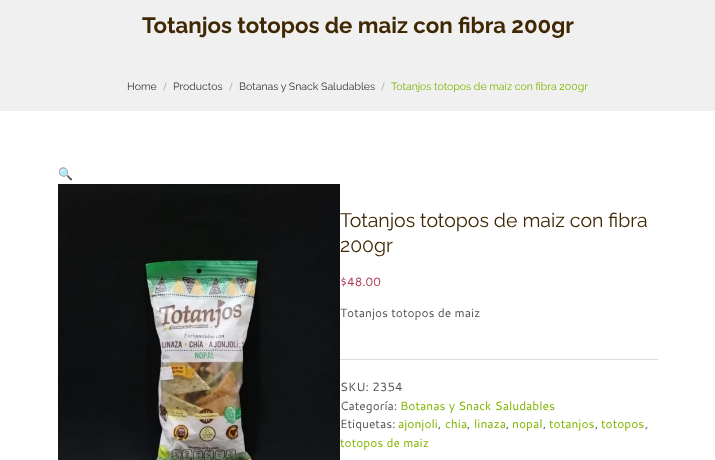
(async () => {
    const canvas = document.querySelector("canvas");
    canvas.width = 715;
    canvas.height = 460;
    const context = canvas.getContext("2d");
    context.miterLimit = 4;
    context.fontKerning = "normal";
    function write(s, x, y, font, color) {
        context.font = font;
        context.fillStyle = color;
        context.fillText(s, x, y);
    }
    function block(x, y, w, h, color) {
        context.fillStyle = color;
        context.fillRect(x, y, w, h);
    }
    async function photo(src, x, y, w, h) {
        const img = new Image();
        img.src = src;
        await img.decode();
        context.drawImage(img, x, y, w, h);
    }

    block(0, 0, 715, 460, "rgb(255, 255, 255)");
    block(0, 0, 715, 111, "rgb(240, 240, 240)");
    write("Totanjos totopos de maiz con fibra 200gr", 142, 33, "bold 22.25px Raleway", "rgb(63, 40, 3)");
    write("Home", 127, 90, "10.5px Raleway", "rgb(53, 53, 53)");
    write("/", 163, 90, "10.5px Cantarell", "rgb(172, 180, 182)");
    write("Productos", 173, 90, "10.5px Raleway", "rgb(53, 53, 53)");
    write("/", 229, 90, "10.5px Cantarell", "rgb(172, 180, 182)");
    write("Botanas y Snack Saludables", 239, 90, "10.5px Raleway", "rgb(53, 53, 53)");
    write("/", 381, 90, "10.5px Cantarell", "rgb(172, 180, 182)");
    write("Totanjos totopos de maiz con fibra 200gr", 391, 90, "10.5px Raleway", "rgb(128, 181, 0)");
    write("🔍", 58, 178, "12px Noto Color Emoji", "rgb(128, 181, 0)");
    write("Totanjos totopos de maiz con fibra", 340, 227, "19.5px Raleway", "rgb(63, 40, 3)");
    write("totopos de maiz", 340, 447, "12px Cantarell", "rgb(128, 181, 0)");
    await photo("media/1.png", 58, 184, 282, 276);
    write("200gr", 340, 252, "19.5px Raleway", "rgb(63, 40, 3)");
    write("$48.00", 340, 286, "12px Cantarell", "rgb(179, 52, 81)");
    write("Totanjos totopos de maiz", 340, 317, "12px Cantarell", "rgb(85, 85, 85)");
    block(340, 359, 318, 1, "rgb(221, 221, 221)");
    write("SKU: 2354", 340, 391, "12px Cantarell", "rgb(85, 85, 85)");
    write("Categoría:", 340, 410, "12px Cantarell", "rgb(85, 85, 85)");
    write("Botanas y Snack Saludables", 400, 410, "12px Cantarell", "rgb(128, 181, 0)");
    write("Etiquetas:", 340, 428, "12px Cantarell", "rgb(85, 85, 85)");
    write("ajonjoli", 398, 428, "12px Cantarell", "rgb(128, 181, 0)");
    write(",", 438, 428, "12px Cantarell", "rgb(85, 85, 85)");
    write("chia", 445, 428, "12px Cantarell", "rgb(128, 181, 0)");
    write(",", 467, 428, "12px Cantarell", "rgb(85, 85, 85)");
    write("linaza", 474, 428, "12px Cantarell", "rgb(128, 181, 0)");
    write(",", 506, 428, "12px Cantarell", "rgb(85, 85, 85)");
    write("nopal", 512, 428, "12px Cantarell", "rgb(128, 181, 0)");
    write(",", 543, 428, "12px Cantarell", "rgb(85, 85, 85)");
    write("totanjos", 549, 428, "12px Cantarell", "rgb(128, 181, 0)");
    write(",", 595, 428, "12px Cantarell", "rgb(85, 85, 85)");
    write("totopos", 601, 428, "12px Cantarell", "rgb(128, 181, 0)");
    write(",", 645, 428, "12px Cantarell", "rgb(85, 85, 85)");
})();
